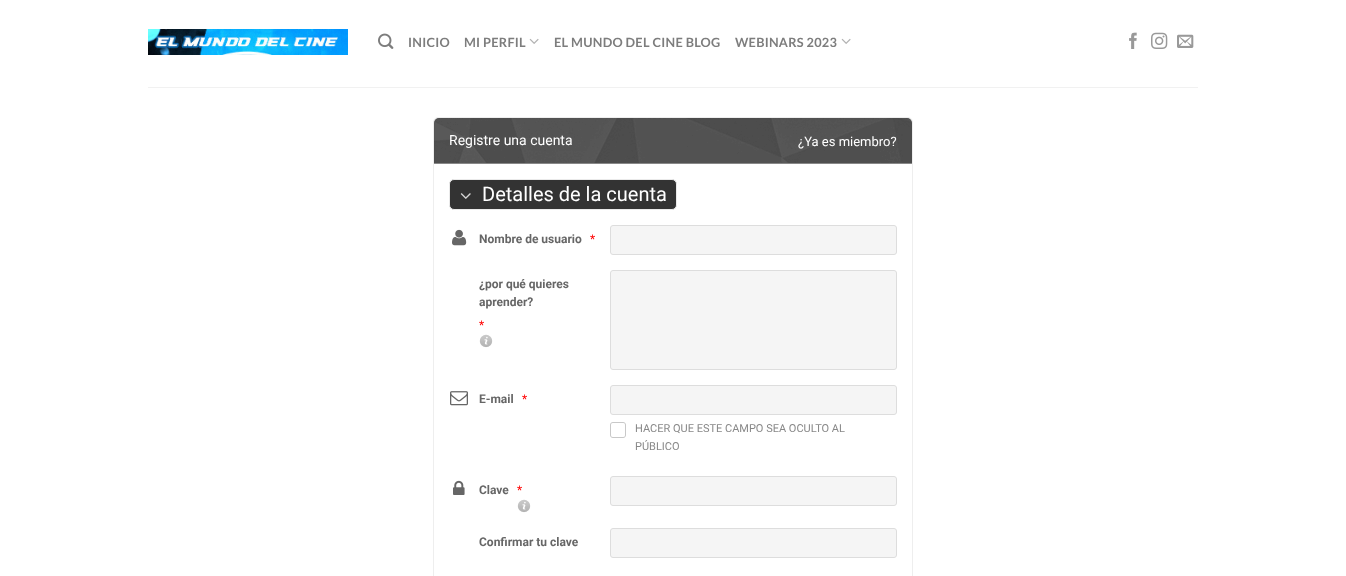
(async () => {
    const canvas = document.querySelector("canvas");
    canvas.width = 1346;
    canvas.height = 576;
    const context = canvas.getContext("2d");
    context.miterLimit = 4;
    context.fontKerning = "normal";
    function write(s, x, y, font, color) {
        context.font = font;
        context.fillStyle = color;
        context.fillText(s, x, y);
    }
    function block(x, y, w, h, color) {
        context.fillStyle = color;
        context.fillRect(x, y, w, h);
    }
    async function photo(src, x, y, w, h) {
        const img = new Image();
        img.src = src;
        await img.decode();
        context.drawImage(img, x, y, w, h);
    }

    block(0, 0, 1346, 576, "rgb(255, 255, 255)");
    await photo("media/1.png", 148, 29, 200, 26);
    await photo("media/2.png", 378, 33, 16, 16);
    context.letterSpacing = "0.25px";
    write("INICIO", 408, 47, "bold 12.75px Lato", "rgb(125, 125, 125)");
    write("MI PERFIL", 464, 47, "bold 12.75px Lato", "rgb(125, 125, 125)");
    await photo("media/3.png", 529, 38, 10, 6);
    write("EL MUNDO DEL CINE BLOG", 554, 47, "bold 12.75px Lato", "rgb(125, 125, 125)");
    write("WEBINARS 2023", 735, 47, "bold 12.75px Lato", "rgb(125, 125, 125)");
    await photo("media/3.png", 841, 38, 10, 6);
    await photo("media/4.png", 1129, 32, 8, 17);
    await photo("media/5.png", 1151, 32, 17, 17);
    await photo("media/6.png", 1177, 34, 17, 14);
    block(148, 87, 1050, 1, "rgb(241, 241, 241)");
    context.beginPath();
    context.roundRect(433.5, 117.5, 479, 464, 4.5);
    context.strokeStyle = "rgb(238, 238, 238)";
    context.stroke();
    context.fillStyle = "rgb(34, 34, 34)";
    context.beginPath();
    context.roundRect(434, 118, 478, 46, [5, 5, 0, 0]);
    context.fill();
    await photo("media/7.png", 434, 118, 478, 45);
    block(434, 163, 478, 1, "rgb(136, 136, 136)");
    context.letterSpacing = "0px";
    write("Registre una cuenta", 449, 145, "14px Roboto", "rgb(255, 255, 255)");
    write("¿Ya es miembro?", 798, 146, "13px Roboto", "rgb(255, 255, 255)");
    context.fillStyle = "rgb(51, 51, 51)";
    context.beginPath();
    context.roundRect(449.5, 179.5, 227, 30, 4.5);
    context.fill();
    context.strokeStyle = "rgb(234, 234, 234)";
    context.stroke();
    await photo("media/8.png", 460, 193, 11, 6);
    write("Detalles de la cuenta", 482, 201, "20px Roboto", "rgb(255, 255, 255)");
    await photo("media/9.png", 452, 229, 15, 17);
    write("Nombre de usuario", 479, 243, "bold 12px Roboto", "rgb(102, 102, 102)");
    write("*", 590, 243, "12px Roboto", "rgb(255, 0, 0)");
    context.fillStyle = "rgb(245, 245, 245)";
    context.beginPath();
    context.roundRect(610.5, 225.5, 286, 29, 2.5);
    context.fill();
    context.strokeStyle = "rgb(221, 221, 221)";
    context.stroke();
    write("¿por qué quieres", 479, 288, "bold 12px Roboto", "rgb(102, 102, 102)");
    write("aprender?", 479, 306, "bold 12px Roboto", "rgb(102, 102, 102)");
    write("*", 479, 329, "12px Roboto", "rgb(255, 0, 0)");
    await photo("media/10.png", 479, 334, 14, 14);
    context.fillStyle = "rgb(245, 245, 245)";
    context.beginPath();
    context.roundRect(610.5, 270.5, 286, 99, 2.5);
    context.fill();
    context.stroke();
    await photo("media/11.png", 450, 391, 18, 15);
    write("E-mail", 479, 403, "bold 12px Roboto", "rgb(102, 102, 102)");
    write("*", 522, 403, "12px Roboto", "rgb(255, 0, 0)");
    context.fillStyle = "rgb(245, 245, 245)";
    context.beginPath();
    context.roundRect(610.5, 385.5, 286, 29, 2.5);
    context.fill();
    context.stroke();
    await photo("media/12.png", 610, 422, 16, 16);
    write("HACER QUE ESTE CAMPO SEA OCULTO AL", 635, 432, "11px Roboto", "rgb(136, 136, 136)");
    write("PÚBLICO", 635, 450, "11px Roboto", "rgb(136, 136, 136)");
    await photo("media/13.png", 453, 480, 12, 15);
    write("Clave", 479, 494, "bold 12px Roboto", "rgb(102, 102, 102)");
    write("*", 517, 494, "12px Roboto", "rgb(255, 0, 0)");
    await photo("media/10.png", 517, 499, 14, 14);
    context.fillStyle = "rgb(245, 245, 245)";
    context.beginPath();
    context.roundRect(610.5, 476.5, 286, 29, 2.5);
    context.fill();
    context.stroke();
    write("Confirmar tu clave", 479, 546, "bold 12px Roboto", "rgb(102, 102, 102)");
    context.fillStyle = "rgb(245, 245, 245)";
    context.beginPath();
    context.roundRect(610.5, 528.5, 286, 29, 2.5);
    context.fill();
    context.stroke();
})();
